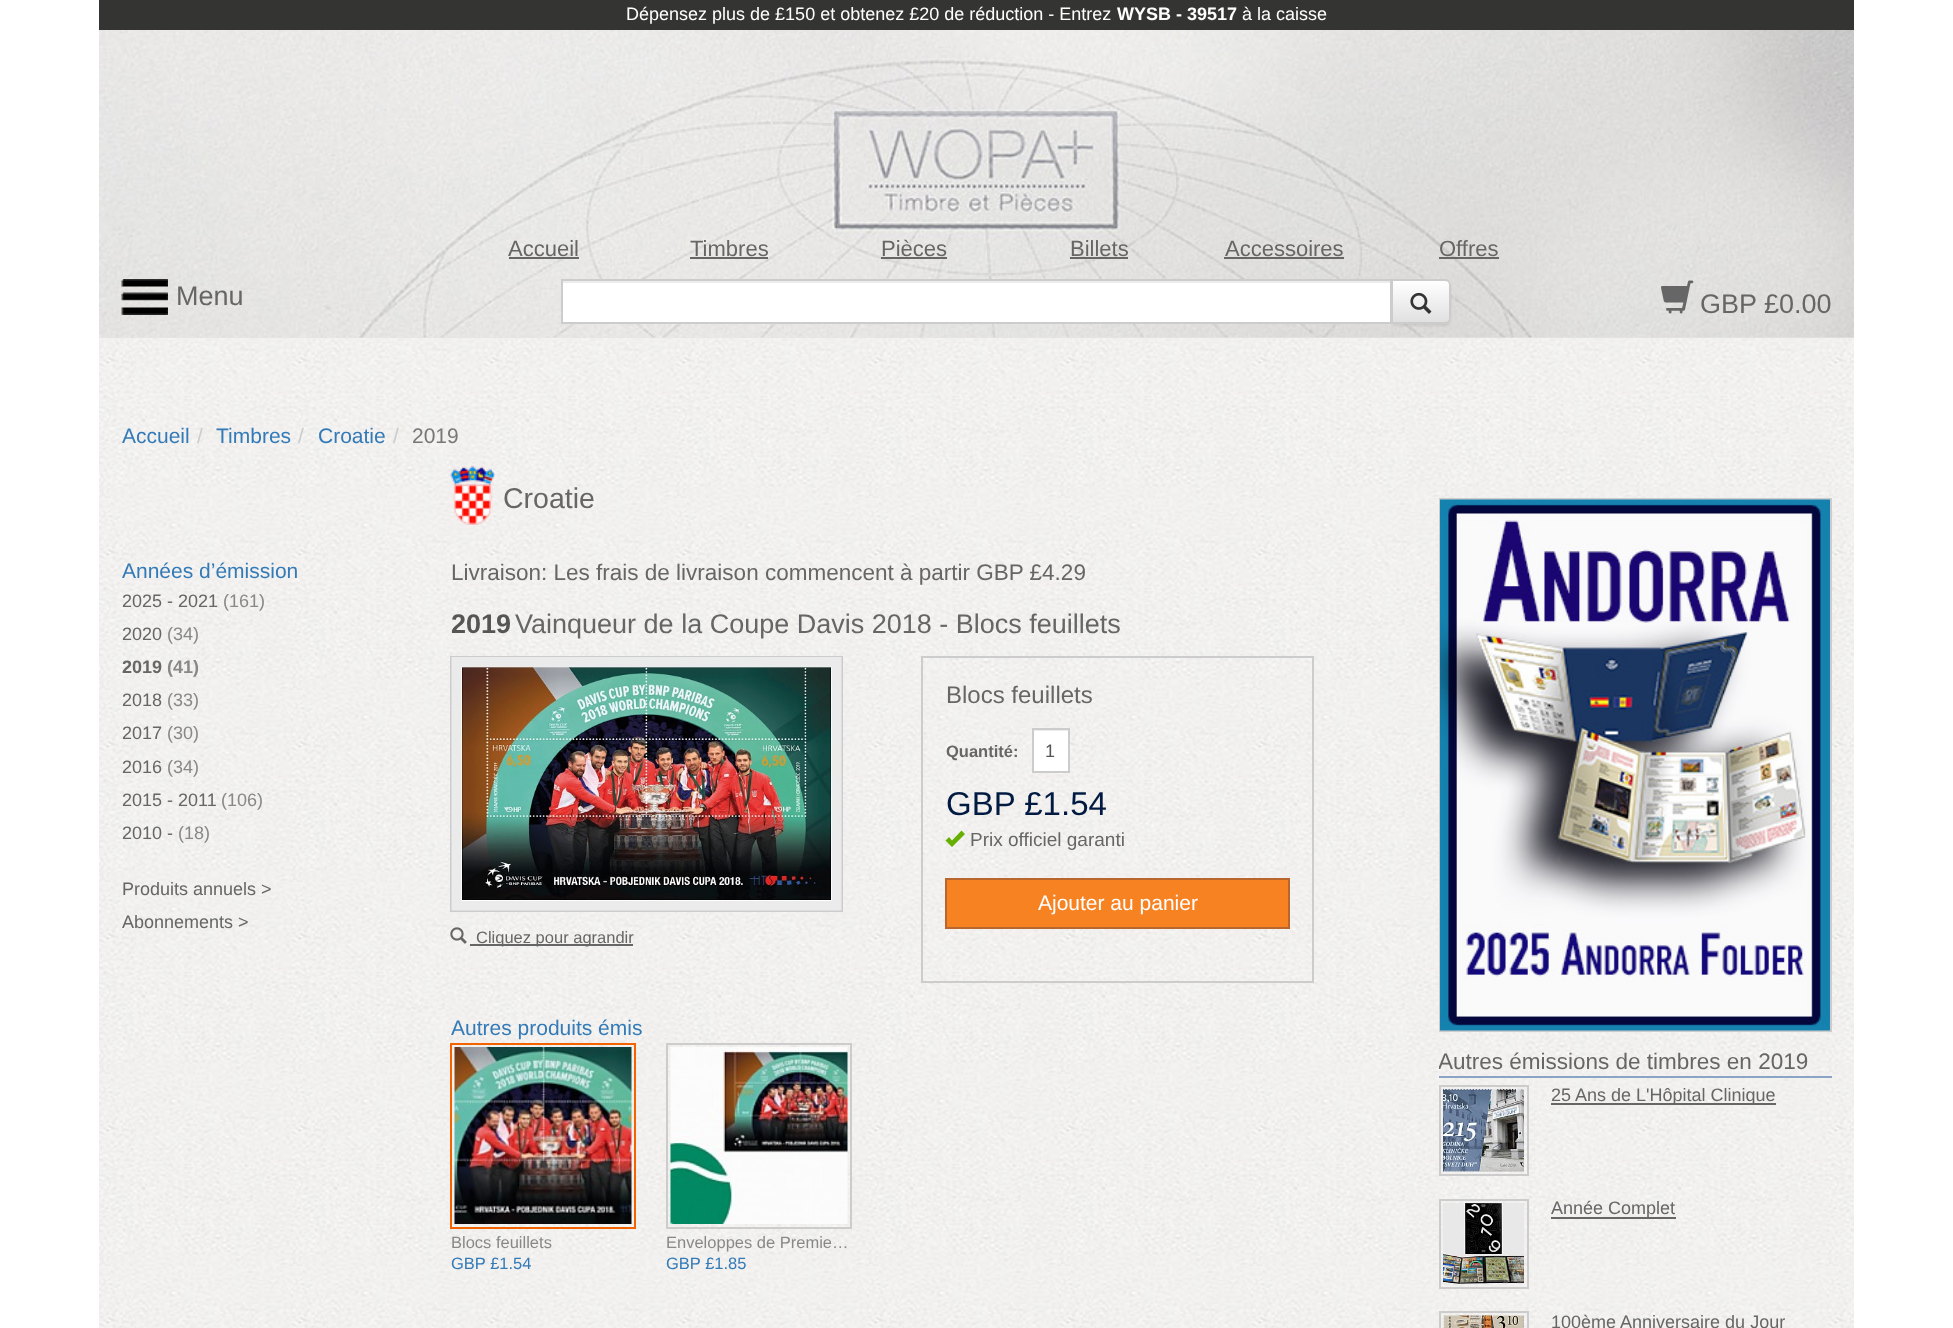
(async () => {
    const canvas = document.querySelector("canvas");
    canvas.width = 1953;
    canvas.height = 1328;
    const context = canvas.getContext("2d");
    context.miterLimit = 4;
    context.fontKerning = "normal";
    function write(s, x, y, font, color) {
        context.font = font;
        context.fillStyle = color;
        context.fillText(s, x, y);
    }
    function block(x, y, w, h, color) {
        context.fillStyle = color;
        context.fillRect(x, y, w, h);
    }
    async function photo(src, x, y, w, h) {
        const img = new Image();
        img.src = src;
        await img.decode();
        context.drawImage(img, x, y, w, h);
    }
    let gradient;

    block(0, 0, 1953, 1328, "rgb(255, 255, 255)");
    await photo("media/1.png", 99, 338, 1755, 990);
    block(99, 0, 1755, 30, "rgb(52, 52, 51)");
    write("Dépensez plus de £150 et obtenez £20 de réduction - Entrez", 626, 20, "18px Liberation Sans", "rgb(255, 255, 255)");
    write("WYSB - 39517", 1117, 20, "bold 18px Liberation Sans", "rgb(255, 255, 255)");
    write("à la caisse", 1242, 20, "18px Liberation Sans", "rgb(255, 255, 255)");
    block(99, 337, 1755, 1, "rgb(231, 230, 229)");
    await photo("media/2.png", 99, 30, 1755, 308);
    write("Accueil", 508, 256, "22px Liberation Sans", "rgb(102, 102, 102)");
    block(509, 257, 70, 2, "rgb(102, 102, 102)");
    write("Timbres", 690, 256, "22px Liberation Sans", "rgb(102, 102, 102)");
    block(690, 257, 78, 2, "rgb(102, 102, 102)");
    write("Pièces", 881, 256, "22px Liberation Sans", "rgb(102, 102, 102)");
    block(881, 257, 66, 2, "rgb(102, 102, 102)");
    write("Billets", 1070, 256, "22px Liberation Sans", "rgb(102, 102, 102)");
    block(1070, 257, 58, 2, "rgb(102, 102, 102)");
    write("Accessoires", 1225, 256, "22px Liberation Sans", "rgb(102, 102, 102)");
    block(1224, 257, 120, 2, "rgb(102, 102, 102)");
    write("Offres", 1439, 256, "22px Liberation Sans", "rgb(102, 102, 102)");
    block(1439, 257, 60, 2, "rgb(102, 102, 102)");
    await photo("media/3.png", 121, 279, 47, 36);
    write("Menu", 176, 305, "27px Liberation Sans", "rgb(102, 102, 102)");
    context.fillStyle = "rgba(0, 0, 0, 0.07)";
    context.filter = "blur(1px)";
    context.beginPath();
    context.roundRect(1391, 281, 60, 45, 6);
    context.fill();
    context.filter = "none";
    block(563, 283, 827, 39, "rgb(255, 255, 255)");
    block(563, 281, 828, 2, "rgb(236, 236, 236)");
    context.save();
    context.beginPath();
    context.roundRect(1391, 279, 60, 45, [0, 6, 6, 0]);
    context.clip();
    gradient = context.createLinearGradient(1421, 281, 1421, 323);
    gradient.addColorStop(0, "rgb(255, 255, 255)");
    gradient.addColorStop(1, "rgb(224, 224, 224)");
    context.fillStyle = gradient;
    context.fillRect(1393, 281, 58, 42);
    context.restore();
    context.beginPath();
    context.roundRect(1392, 280, 58, 43, [0, 5, 5, 0]);
    context.strokeStyle = "rgb(204, 204, 204)";
    context.lineWidth = 2;
    context.stroke();
    context.strokeRect(562, 280, 829, 43);
    await photo("media/4.png", 1410, 292, 22, 22);
    await photo("media/5.png", 1661, 280, 33, 34);
    write("GBP £0.00", 1700, 313, "27px Liberation Sans", "rgb(102, 102, 102)");
    write("Accueil", 122, 443, "21px Liberation Sans", "rgb(51, 122, 183)");
    write("/", 197, 443, "21px Liberation Sans", "rgb(204, 204, 204)");
    write("Timbres", 216, 443, "21px Liberation Sans", "rgb(51, 122, 183)");
    write("/", 298, 443, "21px Liberation Sans", "rgb(204, 204, 204)");
    write("Croatie", 318, 443, "21px Liberation Sans", "rgb(51, 122, 183)");
    write("/", 393, 443, "21px Liberation Sans", "rgb(204, 204, 204)");
    write("2019", 412, 443, "21px Liberation Sans", "rgb(119, 119, 119)");
    write("Années d’émission", 122, 578, "21px Liberation Sans", "rgb(51, 122, 183)");
    write("2025 - 2021", 122, 607, "18px Liberation Sans", "rgb(102, 102, 102)");
    write("(161)", 223, 607, "18px Liberation Sans", "rgb(136, 136, 136)");
    write("2020", 122, 640, "18px Liberation Sans", "rgb(102, 102, 102)");
    write("(34)", 167, 640, "18px Liberation Sans", "rgb(136, 136, 136)");
    write("2019", 122, 673, "bold 18px Liberation Sans", "rgb(102, 102, 102)");
    write("(41)", 167, 673, "bold 18px Liberation Sans", "rgb(136, 136, 136)");
    write("2018", 122, 706, "18px Liberation Sans", "rgb(102, 102, 102)");
    write("(33)", 167, 706, "18px Liberation Sans", "rgb(136, 136, 136)");
    write("2017", 122, 739, "18px Liberation Sans", "rgb(102, 102, 102)");
    write("(30)", 167, 739, "18px Liberation Sans", "rgb(136, 136, 136)");
    write("2016", 122, 773, "18px Liberation Sans", "rgb(102, 102, 102)");
    write("(34)", 167, 773, "18px Liberation Sans", "rgb(136, 136, 136)");
    write("2015 - 2011", 122, 806, "18px Liberation Sans", "rgb(102, 102, 102)");
    write("(106)", 221, 806, "18px Liberation Sans", "rgb(136, 136, 136)");
    write("2010 -", 122, 839, "18px Liberation Sans", "rgb(102, 102, 102)");
    write("(18)", 178, 839, "18px Liberation Sans", "rgb(136, 136, 136)");
    write("Produits annuels >", 122, 895, "18px Liberation Sans", "rgb(102, 102, 102)");
    write("Abonnements >", 122, 928, "18px Liberation Sans", "rgb(102, 102, 102)");
    await photo("media/6.png", 450, 465, 45, 60);
    write("Croatie", 503, 508, "28.5px Liberation Sans", "rgb(102, 102, 102)");
    write("Livraison: Les frais de livraison commencent à partir GBP £4.29", 451, 580, "22.5px Liberation Sans", "rgb(102, 102, 102)");
    write("2019", 451, 633, "bold 27px Liberation Sans", "rgb(85, 85, 85)");
    write("Vainqueur de la Coupe Davis 2018 - Blocs feuillets", 515, 633, "27px Liberation Sans", "rgb(102, 102, 102)");
    context.strokeRect(922, 657, 391, 325);
    write("Blocs feuillets", 946, 703, "24px Liberation Sans", "rgb(102, 102, 102)");
    write("Quantité:", 946, 757, "bold 16.5px Liberation Sans", "rgb(102, 102, 102)");
    block(1034, 731, 34, 40, "rgb(255, 255, 255)");
    block(1034, 730, 34, 1, "rgb(236, 236, 236)");
    context.strokeRect(1033, 729, 36, 43);
    write("1", 1045, 757, "18px Liberation Sans", "rgb(85, 85, 85)");
    write("GBP £1.54", 946, 815, "33px Liberation Sans", "rgb(0, 26, 66)");
    context.fillStyle = "rgb(103, 175, 3)";
    context.beginPath();
    context.moveTo(945.5, 840.5);
    context.lineTo(952, 847);
    context.lineTo(965, 834);
    context.lineTo(961.5, 830.5);
    context.lineTo(952, 840.5);
    context.lineTo(949, 837);
    context.closePath();
    context.fill();
    write("Prix officiel garanti", 970, 846, "19px Liberation Sans", "rgb(102, 102, 102)");
    context.fillStyle = "rgb(247, 130, 34)";
    context.beginPath();
    context.rect(946, 879, 343, 49);
    context.fill();
    context.strokeStyle = "rgb(185, 101, 46)";
    context.stroke();
    write("Ajouter au panier", 1038, 910, "21px Liberation Sans", "rgb(255, 255, 255)");
    context.strokeStyle = "rgb(204, 204, 204)";
    context.strokeRect(451, 657, 391, 254);
    await photo("media/7.png", 451, 657, 391, 254);
    await photo("media/8.png", 450, 927, 17, 17);
    block(470, 944, 163, 2, "rgb(102, 102, 102)");
    write("Cliquez pour agrandir", 476, 943, "16.5px Liberation Sans", "rgb(102, 102, 102)");
    write("Autres produits émis", 451, 1035, "21px Liberation Sans", "rgb(51, 122, 183)");
    context.strokeStyle = "rgb(243, 100, 0)";
    context.strokeRect(451, 1044, 184, 184);
    await photo("media/9.png", 454, 1047, 178, 177);
    write("Blocs feuillets", 451, 1248, "16.5px Liberation Sans", "rgb(136, 136, 136)");
    write("GBP £1.54", 451, 1269, "16.5px Liberation Sans", "rgb(51, 122, 183)");
    context.strokeStyle = "rgb(204, 204, 204)";
    context.strokeRect(667, 1044, 184, 184);
    await photo("media/10.png", 670, 1047, 178, 177);
    write("Enveloppes de Premie…", 666, 1248, "16.5px Liberation Sans", "rgb(136, 136, 136)");
    write("GBP £1.85", 666, 1269, "16.5px Liberation Sans", "rgb(51, 122, 183)");
    context.strokeRect(1440, 499, 391, 532);
    await photo("media/11.png", 1440, 499, 390, 532);
    block(1439, 1076, 393, 2, "rgb(138, 165, 195)");
    context.save();
    context.beginPath();
    context.rect(1439, 1047, 393, 30);
    context.clip();
    write("Autres émissions de timbres en 2019", 1438, 1069, "22.5px Liberation Sans", "rgb(102, 102, 102)");
    context.restore();
    context.strokeRect(1440, 1086, 88, 89);
    await photo("media/12.png", 1443, 1089, 81, 83);
    block(1551, 1103, 225, 2, "rgb(102, 102, 102)");
    write("25 Ans de L'Hôpital Clinique", 1551, 1101, "18px Liberation Sans", "rgb(102, 102, 102)");
    context.strokeRect(1440, 1200, 88, 88);
    await photo("media/13.png", 1443, 1203, 81, 81);
    block(1551, 1217, 125, 2, "rgb(102, 102, 102)");
    write("Année Complet", 1551, 1214, "18px Liberation Sans", "rgb(102, 102, 102)");
    context.strokeRect(1440, 1312, 88, 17);
    await photo("media/14.png", 1443, 1315, 81, 13);
    write("100ème Anniversaire du Jour", 1551, 1328, "18px Liberation Sans", "rgb(102, 102, 102)");
})();
